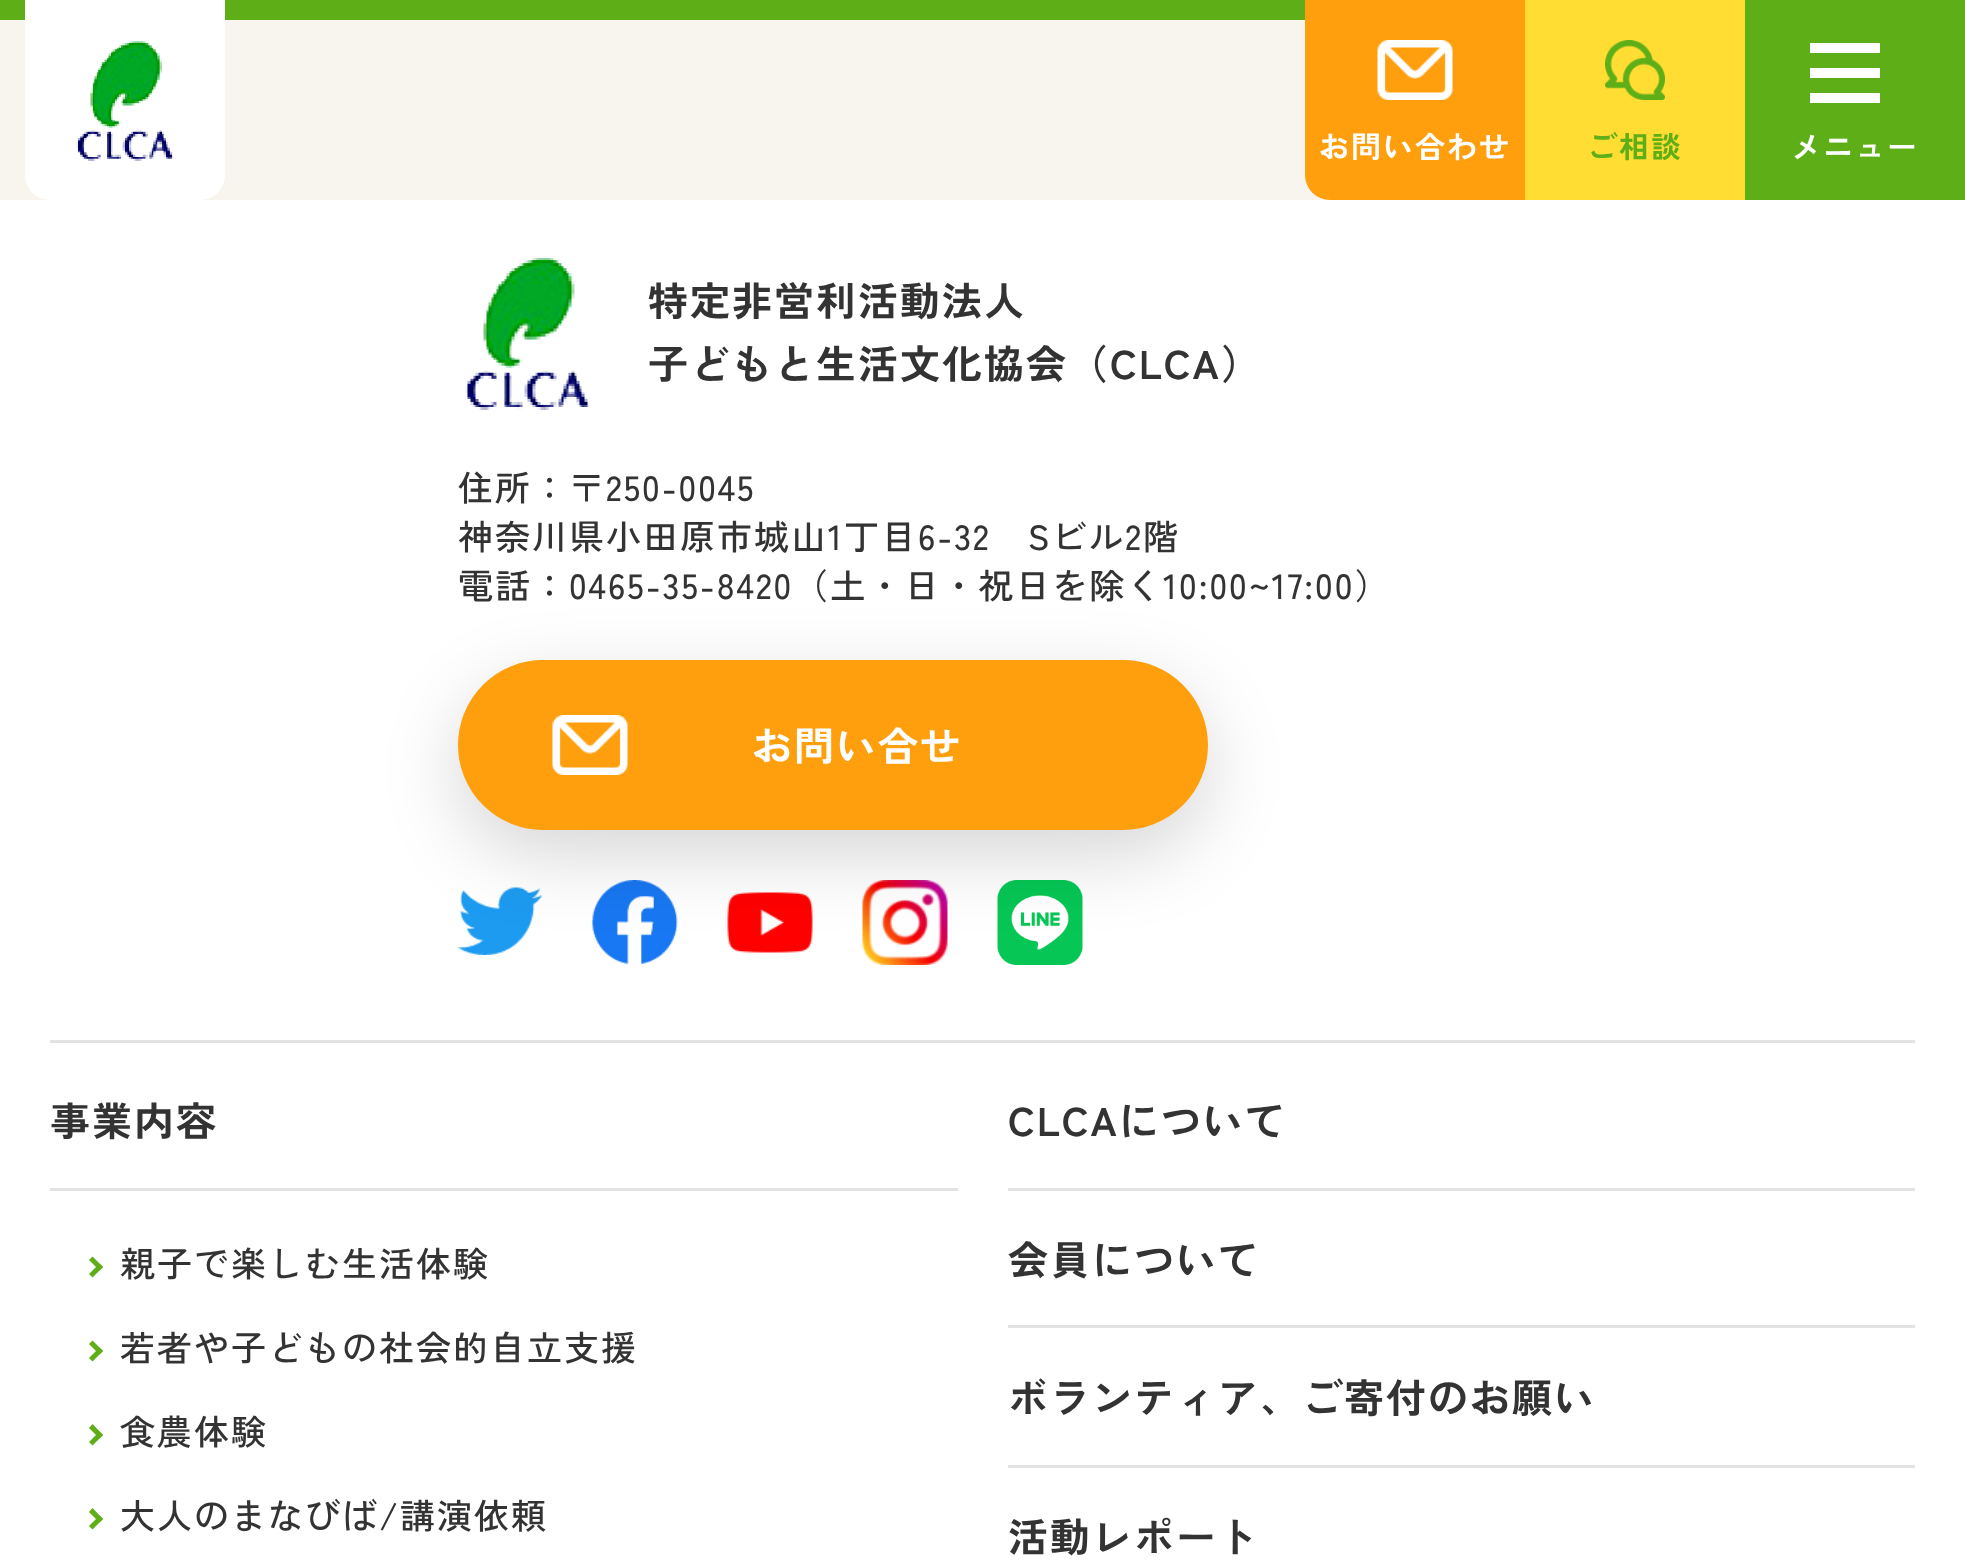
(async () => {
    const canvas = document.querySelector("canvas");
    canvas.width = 1965;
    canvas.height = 1560;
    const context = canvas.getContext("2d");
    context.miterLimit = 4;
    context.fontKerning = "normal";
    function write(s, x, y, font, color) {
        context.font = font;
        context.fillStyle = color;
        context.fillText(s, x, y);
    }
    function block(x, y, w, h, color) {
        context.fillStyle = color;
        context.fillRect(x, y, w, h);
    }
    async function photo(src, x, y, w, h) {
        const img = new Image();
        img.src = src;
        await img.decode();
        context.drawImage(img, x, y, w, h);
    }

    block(0, 0, 1965, 1560, "rgb(248, 245, 239)");
    block(0, 0, 1305, 20, "rgb(93, 174, 23)");
    context.fillStyle = "rgb(255, 255, 255)";
    context.beginPath();
    context.roundRect(25, 0, 200, 200, [0, 0, 25, 25]);
    context.fill();
    await photo("media/1.png", 76, 41, 98, 120);
    context.fillStyle = "rgb(255, 159, 14)";
    context.beginPath();
    context.roundRect(1305, 0, 220, 200, [0, 0, 0, 25]);
    context.fill();
    await photo("media/2.png", 1377, 40, 76, 60);
    context.letterSpacing = "2px";
    write("お問い合わせ", 1319, 158, "bold 30px Zen Kaku Gothic Antique", "rgb(255, 255, 255)");
    block(1525, 0, 220, 200, "rgb(255, 221, 51)");
    await photo("media/3.png", 1605, 40, 60, 60);
    write("ご相談", 1587, 158, "bold 30px Zen Kaku Gothic Antique", "rgb(93, 174, 23)");
    block(1745, 0, 220, 200, "rgb(93, 174, 23)");
    block(1810, 43, 70, 10, "rgb(255, 255, 255)");
    block(1810, 68, 70, 10, "rgb(255, 255, 255)");
    block(1810, 93, 70, 10, "rgb(255, 255, 255)");
    write("メニュー", 1791, 158, "bold 30px Zen Kaku Gothic Antique", "rgb(255, 255, 255)");
    block(0, 200, 1965, 1360, "rgb(255, 255, 255)");
    await photo("media/4.png", 465, 258, 125, 152);
    write("特定非営利活動法人", 648, 316, "bold 40px Zen Kaku Gothic Antique", "rgb(51, 51, 51)");
    write("子どもと生活文化協会（CLCA）", 648, 379, "bold 40px Zen Kaku Gothic Antique", "rgb(51, 51, 51)");
    write("住所：〒250-0045", 458, 501, "500 35px Zen Kaku Gothic Antique", "rgb(51, 51, 51)");
    write("神奈川県小田原市城山1丁目6-32　Sビル2階", 458, 550, "500 35px Zen Kaku Gothic Antique", "rgb(51, 51, 51)");
    write("電話：0465-35-8420（土・日・祝日を除く10:00~17:00）", 458, 599, "500 35px Zen Kaku Gothic Antique", "rgb(51, 51, 51)");
    await photo("media/6.png", 457, 887, 86, 68);
    await photo("media/7.png", 592, 880, 86, 84);
    await photo("media/8.png", 727, 892, 86, 61);
    await photo("media/9.png", 862, 880, 86, 85);
    await photo("media/10.png", 997, 880, 86, 85);
    context.fillStyle = "rgba(0, 0, 0, 0.16)";
    context.filter = "blur(37.5px)";
    context.beginPath();
    context.roundRect(458, 685, 750, 170, 85);
    context.fill();
    context.filter = "none";
    context.fillStyle = "rgb(255, 159, 14)";
    context.beginPath();
    context.roundRect(460.5, 662.5, 745, 165, 82.5);
    context.fill();
    context.strokeStyle = "rgb(255, 159, 14)";
    context.lineWidth = 5;
    context.stroke();
    await photo("media/5.png", 552, 715, 76, 60);
    write("お問い合せ", 752, 761, "bold 40px Zen Kaku Gothic Antique", "rgb(255, 255, 255)");
    block(50, 1040, 1865, 3, "rgb(227, 227, 227)");
    block(50, 1188, 908, 3, "rgb(227, 227, 227)");
    write("事業内容", 50, 1136, "bold 40px Zen Kaku Gothic Antique", "rgb(51, 51, 51)");
    context.fillStyle = "rgb(93, 174, 23)";
    context.beginPath();
    context.moveTo(92.5, 1256.5);
    context.lineTo(103, 1267);
    context.lineTo(99.5, 1270.5);
    context.lineTo(89, 1260);
    context.closePath();
    context.fill();
    context.beginPath();
    context.moveTo(99.5, 1263.5);
    context.lineTo(103, 1267);
    context.lineTo(92.5, 1277.5);
    context.lineTo(89, 1274);
    context.closePath();
    context.fill();
    write("親子で楽しむ生活体験", 120, 1277, "500 35px Zen Kaku Gothic Antique", "rgb(51, 51, 51)");
    context.fillStyle = "rgb(93, 174, 23)";
    context.beginPath();
    context.moveTo(92.5, 1340.5);
    context.lineTo(103, 1351);
    context.lineTo(99.5, 1354.5);
    context.lineTo(89, 1344);
    context.closePath();
    context.fill();
    context.beginPath();
    context.moveTo(99.5, 1347.5);
    context.lineTo(103, 1351);
    context.lineTo(92.5, 1361.5);
    context.lineTo(89, 1358);
    context.closePath();
    context.fill();
    write("若者や子どもの社会的自立支援", 120, 1361, "500 35px Zen Kaku Gothic Antique", "rgb(51, 51, 51)");
    context.fillStyle = "rgb(93, 174, 23)";
    context.beginPath();
    context.moveTo(92.5, 1424);
    context.lineTo(103, 1435);
    context.lineTo(99.5, 1438.5);
    context.lineTo(89, 1428);
    context.closePath();
    context.fill();
    context.beginPath();
    context.moveTo(99.5, 1431.5);
    context.lineTo(103, 1435);
    context.lineTo(92.5, 1445.5);
    context.lineTo(89, 1442);
    context.closePath();
    context.fill();
    write("食農体験", 120, 1445, "500 35px Zen Kaku Gothic Antique", "rgb(51, 51, 51)");
    context.fillStyle = "rgb(93, 174, 23)";
    context.beginPath();
    context.moveTo(92.5, 1508);
    context.lineTo(103, 1519);
    context.lineTo(99.5, 1522.5);
    context.lineTo(89, 1512);
    context.closePath();
    context.fill();
    context.beginPath();
    context.moveTo(99.5, 1515.5);
    context.lineTo(103, 1519);
    context.lineTo(92.5, 1529.5);
    context.lineTo(89, 1526);
    context.closePath();
    context.fill();
    write("大人のまなびば/講演依頼", 120, 1529, "500 35px Zen Kaku Gothic Antique", "rgb(51, 51, 51)");
    block(1008, 1188, 907, 3, "rgb(227, 227, 227)");
    write("CLCAについて", 1008, 1136, "bold 40px Zen Kaku Gothic Antique", "rgb(51, 51, 51)");
    block(1008, 1325, 907, 3, "rgb(227, 227, 227)");
    write("会員について", 1008, 1275, "bold 40px Zen Kaku Gothic Antique", "rgb(51, 51, 51)");
    block(1008, 1465, 907, 3, "rgb(227, 227, 227)");
    write("ボランティア、ご寄付のお願い", 1008, 1413, "bold 40px Zen Kaku Gothic Antique", "rgb(51, 51, 51)");
    write("活動レポート", 1008, 1552, "bold 40px Zen Kaku Gothic Antique", "rgb(51, 51, 51)");
})();
